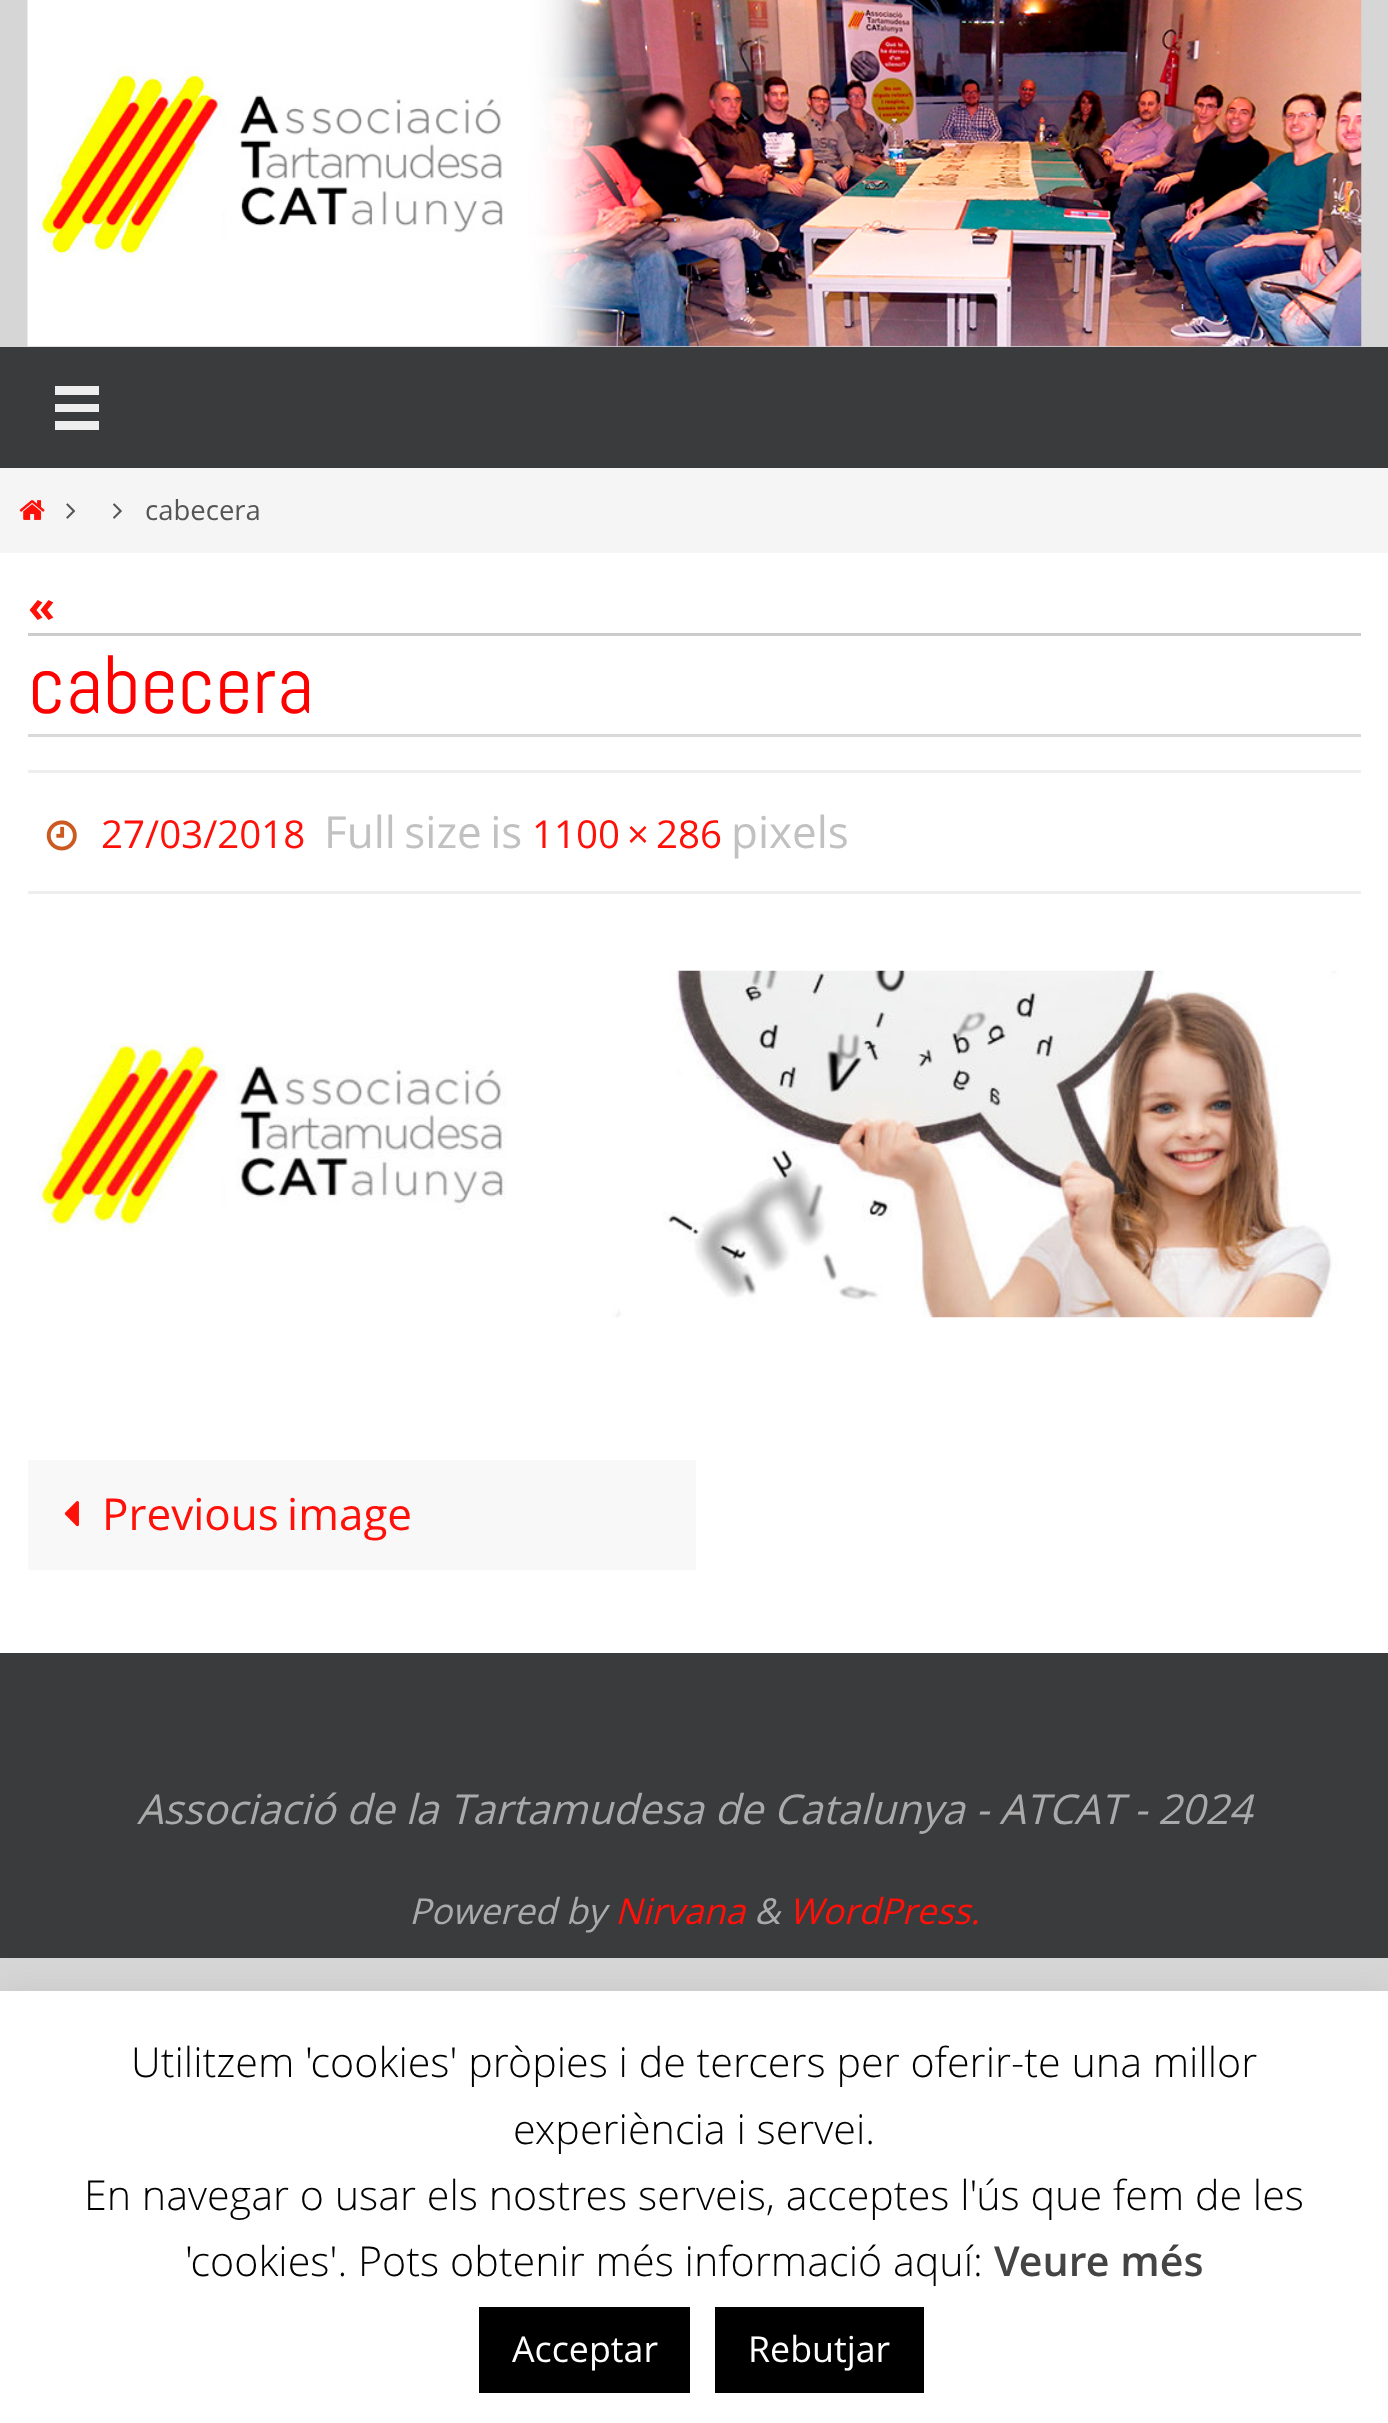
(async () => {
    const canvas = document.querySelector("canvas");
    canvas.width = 1388;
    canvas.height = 2423;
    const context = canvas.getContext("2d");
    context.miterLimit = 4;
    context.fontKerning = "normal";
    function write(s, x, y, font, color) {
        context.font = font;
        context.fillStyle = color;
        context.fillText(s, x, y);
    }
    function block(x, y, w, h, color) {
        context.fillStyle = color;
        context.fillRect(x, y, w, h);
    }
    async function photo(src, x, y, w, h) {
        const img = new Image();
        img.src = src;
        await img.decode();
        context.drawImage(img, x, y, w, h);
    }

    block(0, 0, 1388, 2423, "rgb(214, 214, 214)");
    await photo("media/1.png", 27, 0, 1335, 347);
    block(0, 347, 1388, 121, "rgb(58, 59, 61)");
    context.fillStyle = "rgb(238, 238, 238)";
    context.beginPath();
    context.moveTo(55, 386);
    context.lineTo(55, 395);
    context.lineTo(99, 395);
    context.lineTo(99, 386);
    context.closePath();
    context.moveTo(55, 404);
    context.lineTo(55, 412);
    context.lineTo(99, 412);
    context.lineTo(99, 404);
    context.closePath();
    context.moveTo(55, 421);
    context.lineTo(55, 430);
    context.lineTo(99, 430);
    context.lineTo(99, 421);
    context.closePath();
    context.fill();
    block(0, 468, 1388, 85, "rgb(245, 245, 245)");
    await photo("media/2.png", 19, 500, 26, 20);
    await photo("media/3.png", 66, 503, 10, 16);
    await photo("media/4.png", 113, 503, 9, 16);
    write("cabecera", 145, 520, "27.5px Open Sans", "rgb(85, 85, 85)");
    block(0, 553, 1388, 1100, "rgb(255, 255, 255)");
    block(28, 633, 1333, 3, "rgb(204, 204, 204)");
    write("«", 28, 622, "bold 44px Open Sans", "rgb(255, 16, 9)");
    block(28, 734, 1333, 3, "rgb(217, 217, 217)");
    write("cabecera", 28, 713, "82.5px Abel", "rgb(255, 0, 0)");
    block(28, 770, 1333, 3, "rgb(238, 238, 238)");
    block(28, 891, 1333, 3, "rgb(238, 238, 238)");
    await photo("media/5.png", 46, 820, 31, 31);
    write("27/03/2018", 101, 848, "38.5px Open Sans", "rgb(255, 16, 9)");
    context.wordSpacing = "-3px";
    write("Full size is", 324, 848, "44px Open Sans", "rgb(193, 193, 193)");
    write("1100 × 286", 532, 848, "38.5px Open Sans", "rgb(255, 16, 9)");
    context.wordSpacing = "0px";
    write("pixels", 731, 848, "44px Open Sans", "rgb(193, 193, 193)");
    await photo("media/6.png", 38, 970, 1299, 348);
    block(28, 1460, 668, 110, "rgb(248, 248, 248)");
    await photo("media/7.png", 64, 1501, 15, 26);
    context.wordSpacing = "-3px";
    write("Previous image", 102, 1530, "44px Open Sans", "rgb(255, 16, 9)");
    block(0, 1653, 1388, 305, "rgb(58, 59, 61)");
    context.wordSpacing = "0px";
    write("Associació de la Tartamudesa de Catalunya - ATCAT - 2024", 137, 1824, "italic 41.25px Open Sans", "rgb(170, 170, 170)");
    write("Powered by", 409, 1924, "italic 35.75px Open Sans", "rgb(170, 170, 170)");
    write("Nirvana", 615, 1924, "italic 35.75px Open Sans", "rgb(255, 16, 9)");
    write("&", 754, 1924, "italic 35.75px Open Sans", "rgb(170, 170, 170)");
    write("WordPress.", 789, 1924, "italic 35.75px Open Sans", "rgb(255, 16, 9)");
    context.fillStyle = "rgba(172, 171, 171, 0.3)";
    context.filter = "blur(14px)";
    context.beginPath();
    context.rect(0, 1988, 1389, 435);
    context.fill();
    context.filter = "none";
    block(0, 1991, 1388, 432, "rgb(255, 255, 255)");
    write("Utilitzem 'cookies' pròpies i de tercers per oferir-te una millor", 131, 2077, "300 41.25px Open Sans", "rgb(0, 0, 0)");
    write("experiència i servei.", 513, 2144, "300 41.25px Open Sans", "rgb(0, 0, 0)");
    write("En navegar o usar els nostres serveis, acceptes l'ús que fem de les", 84, 2210, "300 41.25px Open Sans", "rgb(0, 0, 0)");
    write("'cookies'. Pots obtenir més informació aquí:", 185, 2276, "300 41.25px Open Sans", "rgb(0, 0, 0)");
    write("Veure més", 994, 2276, "600 41.25px Open Sans", "rgb(68, 68, 68)");
    block(479, 2307, 211, 86, "rgb(0, 0, 0)");
    write("Acceptar", 512, 2362, "35.75px Open Sans", "rgb(255, 255, 255)");
    block(715, 2307, 209, 86, "rgb(0, 0, 0)");
    write("Rebutjar", 748, 2362, "35.75px Open Sans", "rgb(255, 255, 255)");
})();
